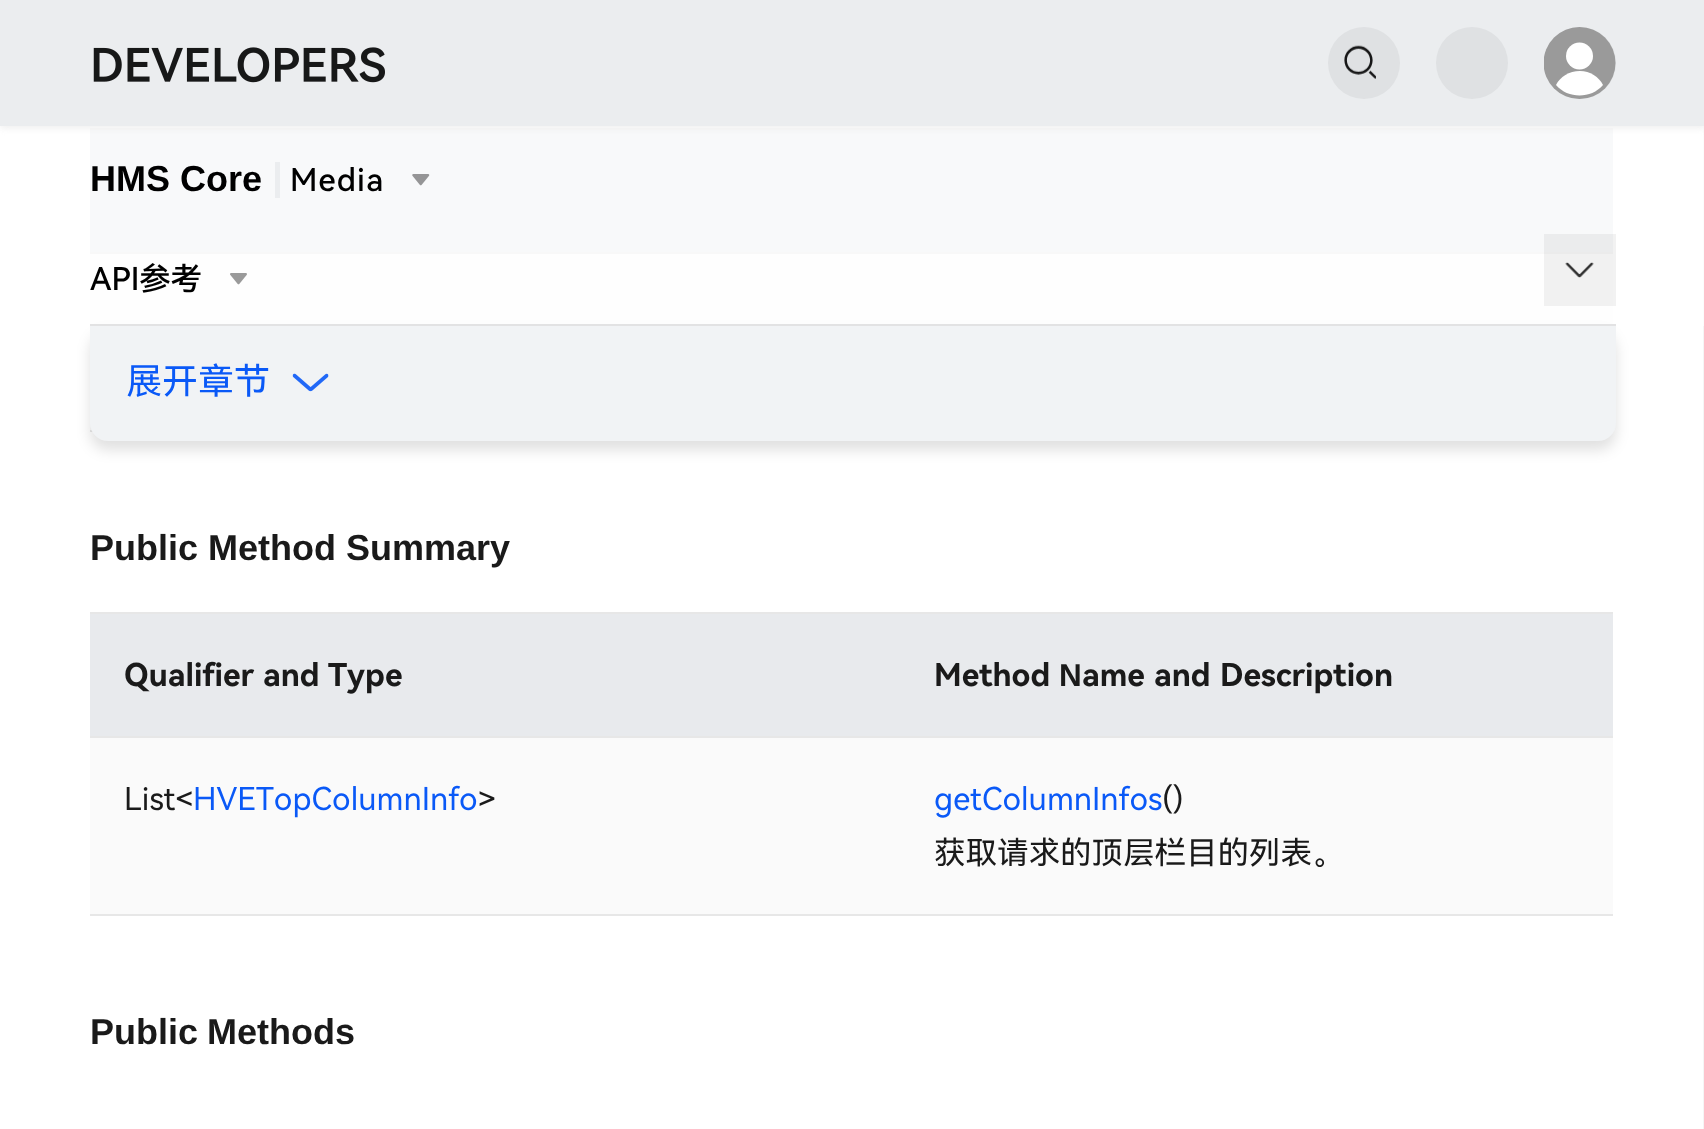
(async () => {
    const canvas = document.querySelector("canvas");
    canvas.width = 1704;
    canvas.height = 1129;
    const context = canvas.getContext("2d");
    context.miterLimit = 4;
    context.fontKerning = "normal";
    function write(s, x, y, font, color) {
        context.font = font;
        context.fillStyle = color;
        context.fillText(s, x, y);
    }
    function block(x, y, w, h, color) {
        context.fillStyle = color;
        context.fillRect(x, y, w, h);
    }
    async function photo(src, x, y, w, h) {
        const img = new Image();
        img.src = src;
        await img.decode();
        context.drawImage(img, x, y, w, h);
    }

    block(0, 0, 1704, 1129, "rgb(255, 255, 255)");
    block(1703, 126, 1, 1003, "rgb(245, 245, 245)");
    block(90, 254, 1523, 176, "rgb(250, 250, 250)");
    block(90, 430, 3, 2, "rgb(231, 231, 231)");
    context.fillStyle = "rgba(0, 0, 0, 0.12)";
    context.filter = "blur(7px)";
    context.beginPath();
    context.roundRect(90, 333, 1526, 117, 18);
    context.fill();
    context.filter = "none";
    context.fillStyle = "rgb(241, 243, 245)";
    context.beginPath();
    context.roundRect(90, 324, 1526, 117, [0, 0, 18, 18]);
    context.fill();
    block(90, 130, 1523, 122, "rgb(232, 234, 237)");
    block(90, 128, 1523, 2, "rgb(231, 231, 231)");
    block(90, 252, 1523, 2, "rgb(231, 231, 231)");
    block(90, 126, 1614, 200, "rgba(255, 255, 255, 0.7)");
    context.fillStyle = "rgb(238, 238, 238)";
    context.filter = "blur(3.5px)";
    context.beginPath();
    context.rect(0, 2, 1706, 126);
    context.fill();
    context.filter = "none";
    block(0, 0, 1704, 126, "rgb(235, 237, 239)");
    await photo("media/1.png", 93, 47, 292, 36);
    context.fillStyle = "rgb(223, 225, 227)";
    context.beginPath();
    context.arc(1364, 63, 36, 0, Math.PI * 2);
    context.fill();
    await photo("media/2.png", 1344, 45, 32, 34);
    context.beginPath();
    context.arc(1472, 63, 36, 0, Math.PI * 2);
    context.fill();
    context.beginPath();
    context.arc(1580, 63, 36, 0, Math.PI * 2);
    context.fill();
    context.save();
    context.beginPath();
    context.rect(1544, 27, 72, 72);
    context.clip();
    context.fillStyle = "rgb(154, 154, 154)";
    context.beginPath();
    context.arc(1579.5, 63, 36, 0, Math.PI * 2);
    context.fill();
    context.restore();
    context.fillStyle = "rgb(255, 255, 255)";
    context.beginPath();
    context.arc(1579.5, 56, 13.5, 0, Math.PI * 2);
    context.fill();
    context.beginPath();
    context.moveTo(1580, 71);
    context.bezierCurveTo(1590, 71, 1599, 77, 1603, 85);
    context.bezierCurveTo(1591, 99, 1568, 99, 1556, 85);
    context.bezierCurveTo(1560, 77, 1569, 71, 1580, 71);
    context.closePath();
    context.fill("evenodd");
    block(90, 324, 1526, 2, "rgb(226, 226, 227)");
    write("HMS Core", 90, 191, "bold 36px Liberation Sans", "rgb(0, 0, 0)");
    block(275, 162, 5, 36, "rgb(235, 237, 239)");
    context.letterSpacing = "1px";
    write("Media", 290, 191, "500 31.5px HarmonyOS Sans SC", "rgb(0, 0, 0)");
    await photo("media/3.png", 412, 174, 18, 12);
    context.letterSpacing = "0px";
    write("API参考", 90, 290, "500 31.5px HarmonyOS Sans SC", "rgb(0, 0, 0)");
    await photo("media/4.png", 230, 273, 17, 12);
    block(1544, 234, 72, 72, "rgba(0, 0, 0, 0.05)");
    await photo("media/5.png", 1565, 262, 29, 16);
    write("展开章节", 126, 394, "36px HarmonyOS Sans SC", "rgb(10, 89, 247)");
    await photo("media/6.png", 292, 373, 37, 19);
    write("Public Method Summary", 90, 560, "bold 36px Liberation Sans", "rgb(26, 26, 26)");
    block(90, 614, 1523, 122, "rgb(232, 234, 237)");
    block(90, 612, 1523, 2, "rgb(231, 231, 231)");
    block(90, 736, 1523, 2, "rgb(231, 231, 231)");
    write("Qualifier", 124, 686, "bold 31.5px HarmonyOS Sans SC", "rgb(26, 26, 26)");
    write("and", 263, 686, "bold 31.5px HarmonyOS Sans SC", "rgb(26, 26, 26)");
    write("Type", 328, 686, "bold 31.5px HarmonyOS Sans SC", "rgb(26, 26, 26)");
    write("Method", 934, 686, "bold 31.5px HarmonyOS Sans SC", "rgb(26, 26, 26)");
    write("N", 1059, 686, "bold 31.5px Liberation Sans", "rgb(26, 26, 26)");
    write("ame", 1082, 686, "bold 31.5px HarmonyOS Sans SC", "rgb(26, 26, 26)");
    write("and", 1154, 686, "bold 31.5px HarmonyOS Sans SC", "rgb(26, 26, 26)");
    write("Description", 1220, 686, "bold 31.5px HarmonyOS Sans SC", "rgb(26, 26, 26)");
    block(90, 738, 1523, 176, "rgb(250, 250, 250)");
    block(90, 914, 1523, 2, "rgb(231, 231, 231)");
    write("List<", 124, 810, "31.5px HarmonyOS Sans SC", "rgb(26, 26, 26)");
    write("HVETopColumnInfo", 193, 810, "31.5px HarmonyOS Sans SC", "rgb(10, 89, 247)");
    write(">", 478, 810, "31.5px HarmonyOS Sans SC", "rgb(26, 26, 26)");
    write("getColumnInfos", 934, 810, "31.5px HarmonyOS Sans SC", "rgb(10, 89, 247)");
    write("()", 1162, 810, "31.5px HarmonyOS Sans SC", "rgb(26, 26, 26)");
    write("获取请求的顶层栏目的列表。", 934, 864, "31.5px HarmonyOS Sans SC", "rgb(26, 26, 26)");
    context.wordSpacing = "-1px";
    write("Public Methods", 90, 1044, "bold 36px Liberation Sans", "rgb(26, 26, 26)");
})();
